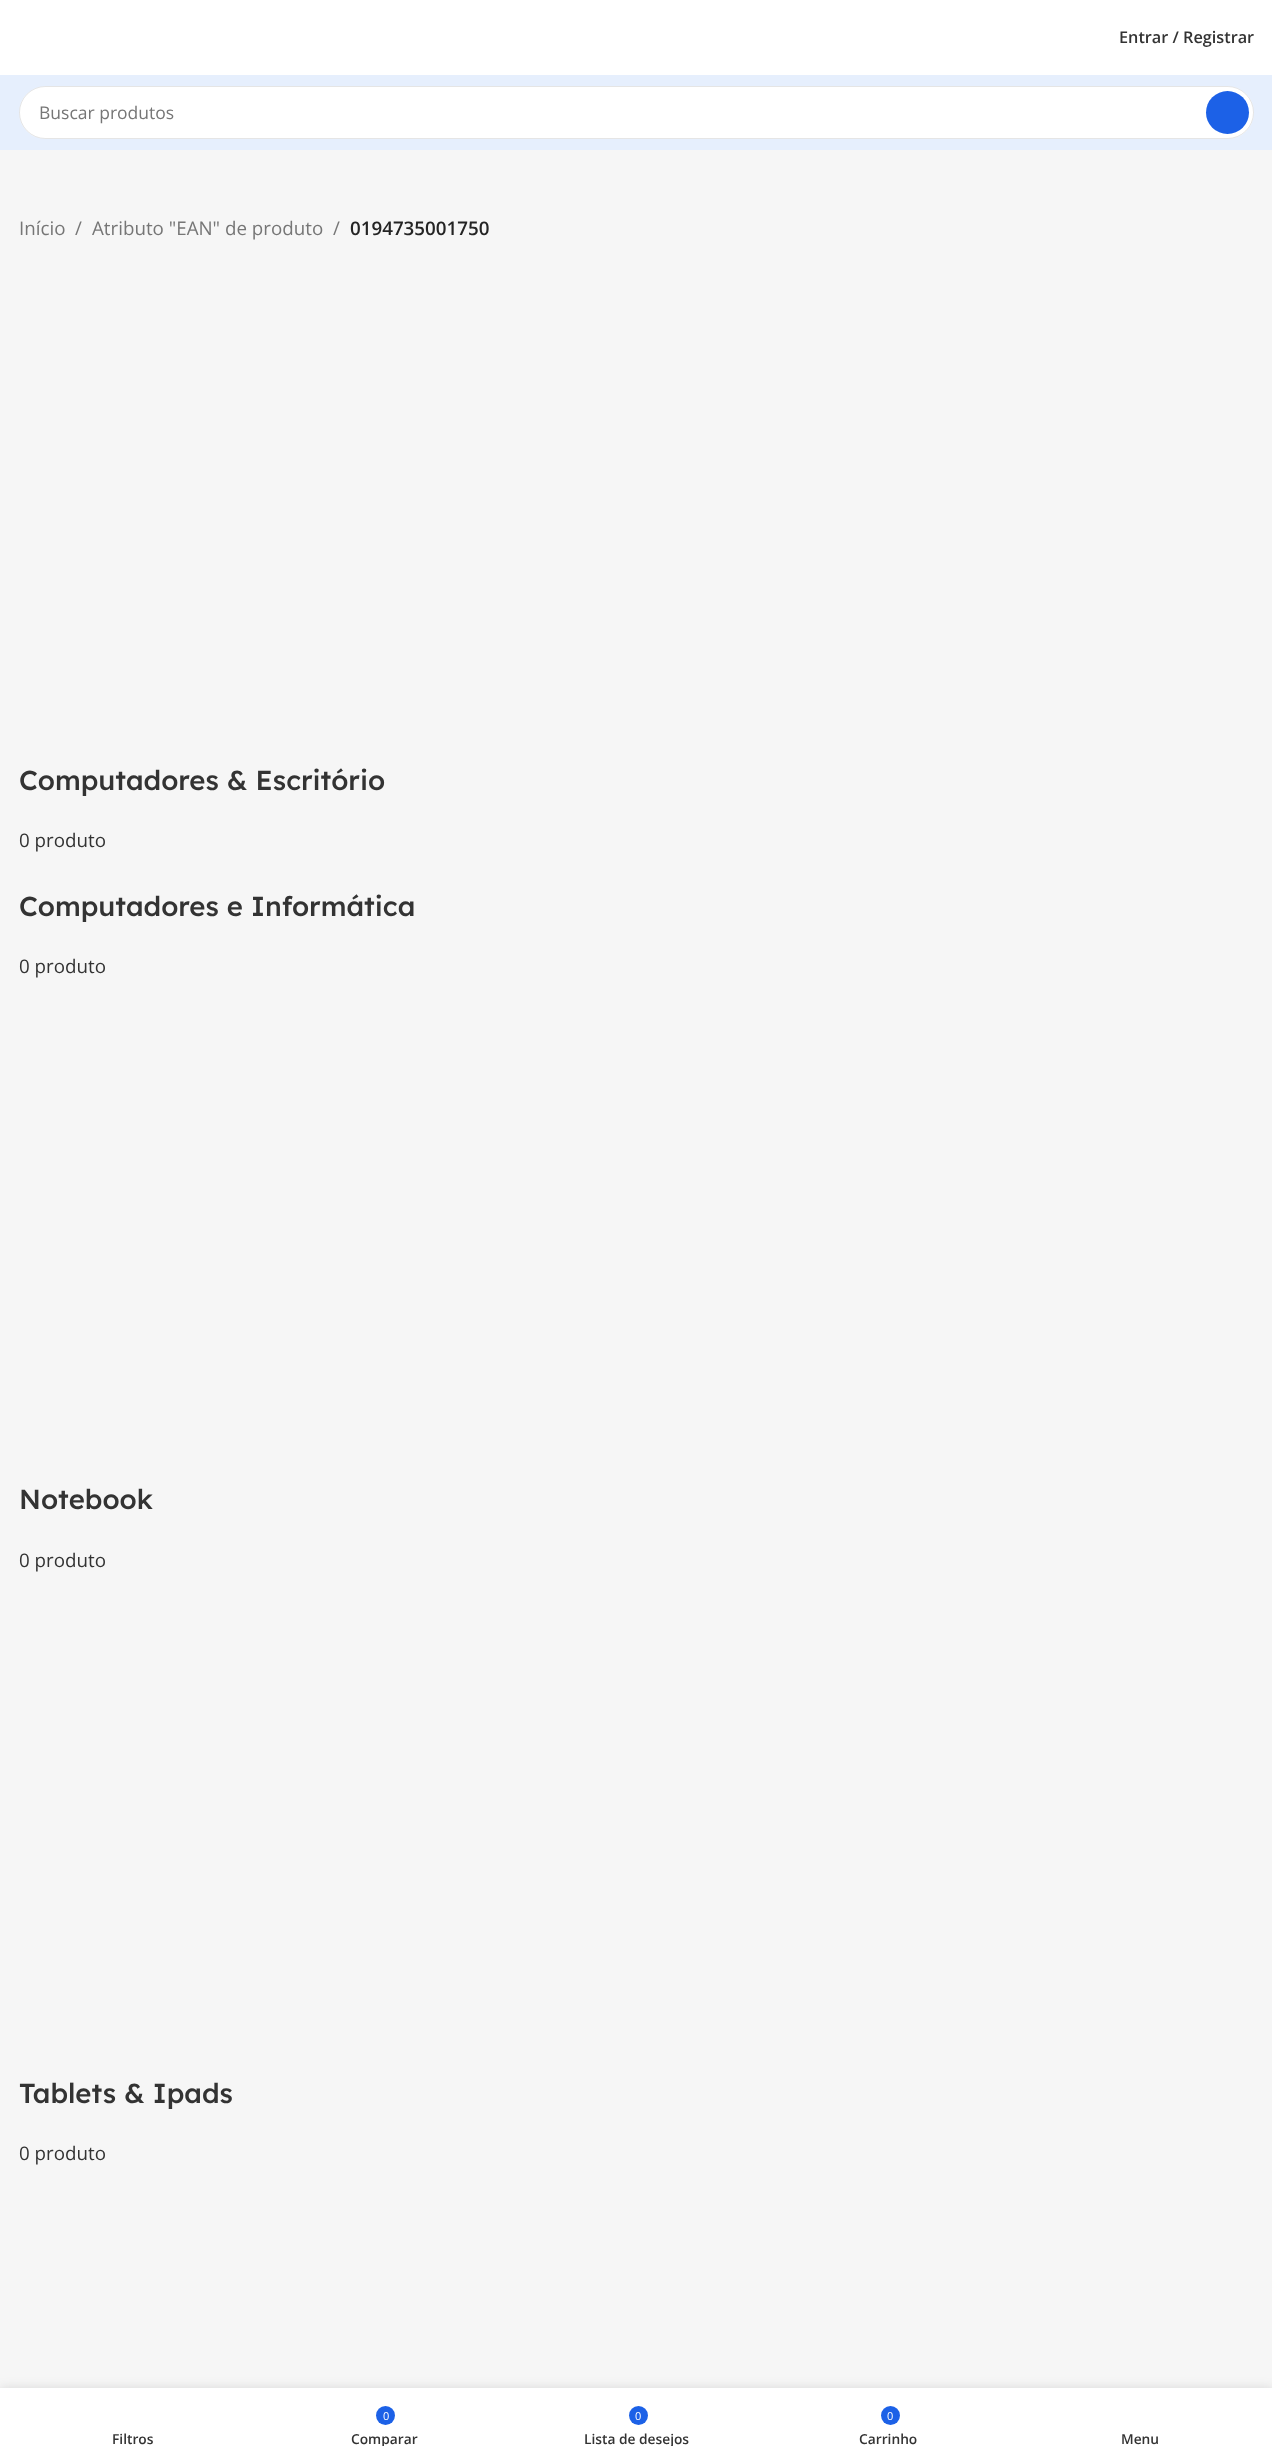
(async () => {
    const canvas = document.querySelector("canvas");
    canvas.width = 1272;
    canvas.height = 2456;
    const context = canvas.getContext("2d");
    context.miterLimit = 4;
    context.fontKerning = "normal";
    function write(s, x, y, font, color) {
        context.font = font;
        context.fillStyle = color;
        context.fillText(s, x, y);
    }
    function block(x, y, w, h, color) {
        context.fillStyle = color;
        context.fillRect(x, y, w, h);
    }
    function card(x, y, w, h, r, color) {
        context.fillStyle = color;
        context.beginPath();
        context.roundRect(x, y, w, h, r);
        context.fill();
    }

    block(0, 0, 1272, 2456, "rgb(255, 255, 255)");
    write("Entrar / Registrar", 1119, 43, "600 16.25px Open Sans", "rgb(51, 51, 51)");
    block(0, 75, 1272, 75, "rgb(230, 239, 253)");
    card(19, 86, 1235, 53, 26.5, "rgb(255, 255, 255)");
    context.beginPath();
    context.roundRect(19.5, 86.5, 1234, 52, 26);
    context.strokeStyle = "rgba(0, 0, 0, 0.1)";
    context.stroke();
    write("Buscar produtos", 39, 119, "17.5px Open Sans", "rgb(118, 118, 118)");
    context.fillStyle = "rgb(28, 97, 231)";
    context.beginPath();
    context.arc(1227.5, 112.5, 21.5, 0, Math.PI * 2);
    context.fill();
    block(0, 150, 1272, 2238, "rgb(246, 246, 246)");
    write("Início", 19, 235, "18.75px Open Sans", "rgb(118, 118, 118)");
    write("/", 75, 235, "18.75px Open Sans", "rgb(118, 118, 118)");
    write("Atributo \"EAN\" de produto", 92, 235, "18.75px Open Sans", "rgb(118, 118, 118)");
    write("/", 333, 235, "18.75px Open Sans", "rgb(118, 118, 118)");
    write("0194735001750", 350, 235, "600 18.75px Open Sans", "rgb(36, 36, 36)");
    write("Computadores & Escritório", 19, 790, "500 27.5px Lexend Deca", "rgb(51, 51, 51)");
    write("0 produto", 19, 847, "18.75px Open Sans", "rgb(51, 51, 51)");
    write("Computadores e Informática", 19, 916, "500 27.5px Lexend Deca", "rgb(51, 51, 51)");
    write("0 produto", 19, 973, "18.75px Open Sans", "rgb(51, 51, 51)");
    write("Notebook", 19, 1509, "500 27.5px Lexend Deca", "rgb(51, 51, 51)");
    write("0 produto", 19, 1567, "18.75px Open Sans", "rgb(51, 51, 51)");
    write("Tablets & Ipads", 19, 2103, "500 27.5px Lexend Deca", "rgb(51, 51, 51)");
    write("0 produto", 19, 2160, "18.75px Open Sans", "rgb(51, 51, 51)");
    context.fillStyle = "rgba(0, 0, 0, 0.12)";
    context.filter = "blur(5.5px)";
    context.beginPath();
    context.rect(0, 2388, 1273, 68);
    context.fill();
    context.filter = "none";
    block(0, 2388, 1272, 68, "rgb(255, 255, 255)");
    write("Filtros", 112, 2444, "600 13.75px Open Sans", "rgb(51, 51, 51)");
    context.fillStyle = "rgb(28, 97, 231)";
    context.beginPath();
    context.arc(385.5, 2415.5, 9.5, 0, Math.PI * 2);
    context.fill();
    write("0", 383, 2420, "11px Open Sans", "rgb(255, 255, 255)");
    context.save();
    context.beginPath();
    context.rect(271, 2430, 227, 16);
    context.clip();
    write("Comparar", 351, 2444, "600 13.75px Open Sans", "rgb(51, 51, 51)");
    context.restore();
    context.fillStyle = "rgb(28, 97, 231)";
    context.beginPath();
    context.arc(638.5, 2415.5, 9.5, 0, Math.PI * 2);
    context.fill();
    write("0", 635, 2420, "11px Open Sans", "rgb(255, 255, 255)");
    context.save();
    context.beginPath();
    context.rect(523, 2430, 227, 16);
    context.clip();
    write("Lista de desejos", 584, 2444, "600 13.75px Open Sans", "rgb(51, 51, 51)");
    context.restore();
    context.fillStyle = "rgb(28, 97, 231)";
    context.beginPath();
    context.arc(890.5, 2415.5, 9.5, 0, Math.PI * 2);
    context.fill();
    write("0", 887, 2420, "11px Open Sans", "rgb(255, 255, 255)");
    write("Carrinho", 859, 2444, "600 13.75px Open Sans", "rgb(51, 51, 51)");
    write("Menu", 1121, 2444, "600 13.75px Open Sans", "rgb(51, 51, 51)");
})();
